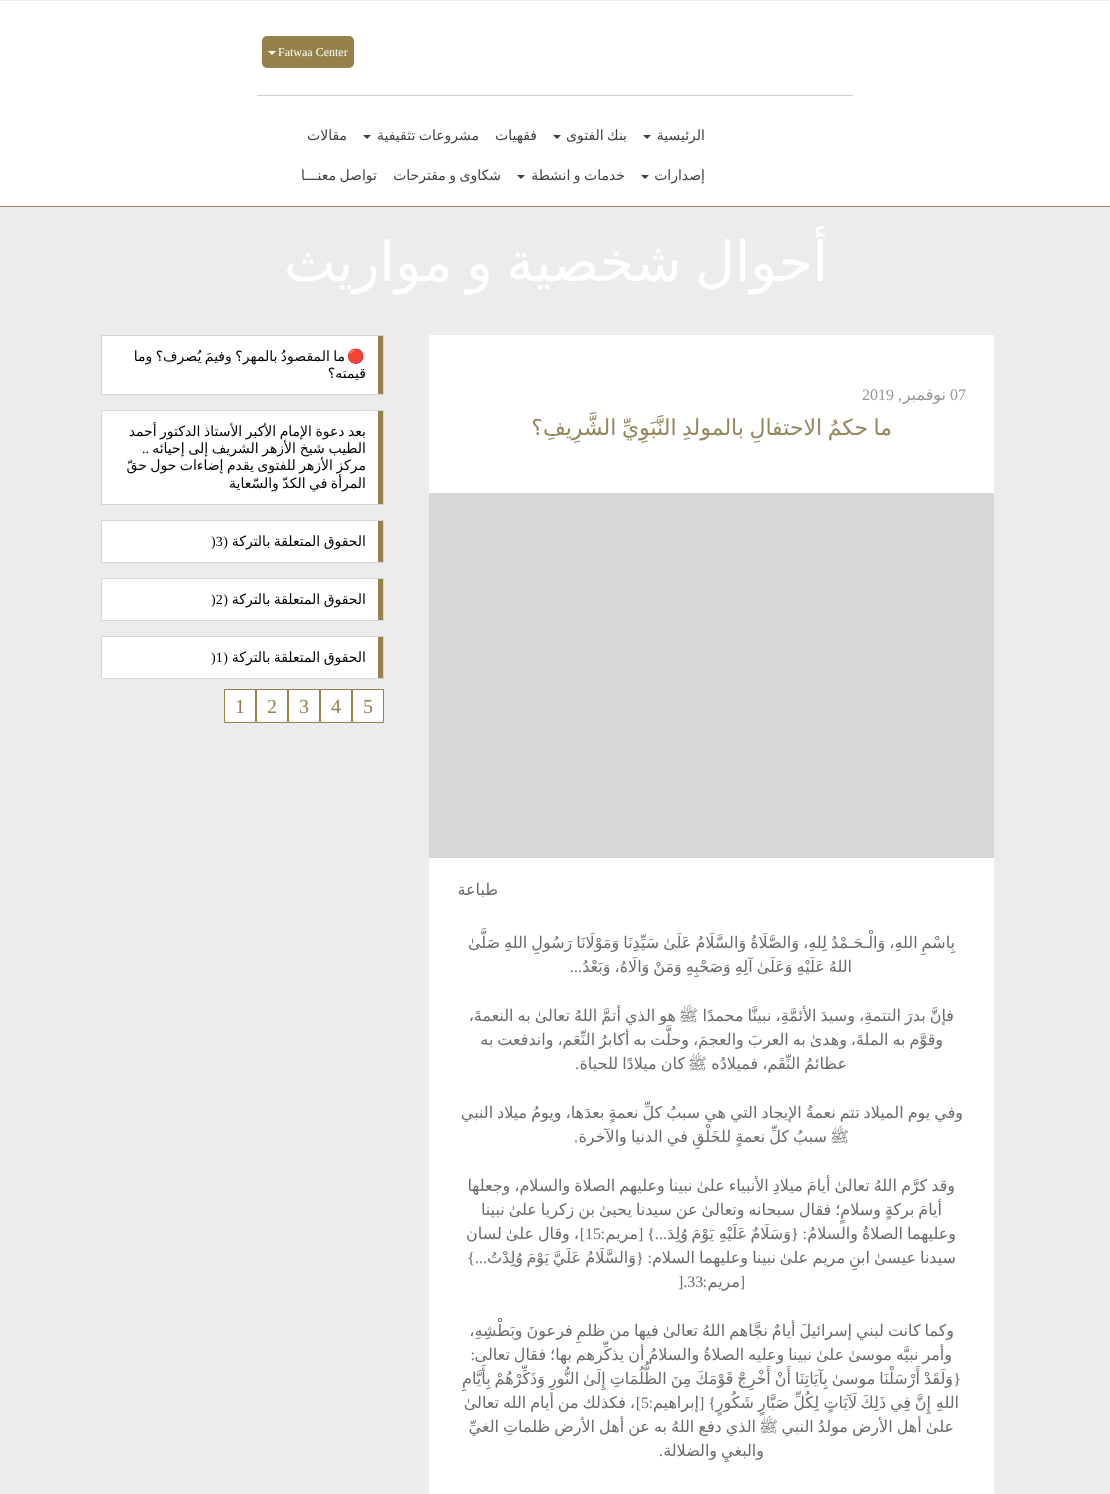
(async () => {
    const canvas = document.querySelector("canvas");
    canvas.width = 1110;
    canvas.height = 1494;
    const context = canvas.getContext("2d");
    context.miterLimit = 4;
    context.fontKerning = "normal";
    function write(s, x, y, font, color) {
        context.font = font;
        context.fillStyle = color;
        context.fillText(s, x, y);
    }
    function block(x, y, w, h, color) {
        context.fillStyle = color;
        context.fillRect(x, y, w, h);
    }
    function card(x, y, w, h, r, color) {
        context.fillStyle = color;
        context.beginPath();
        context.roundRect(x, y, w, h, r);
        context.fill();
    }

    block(0, 0, 1110, 1494, "rgb(236, 236, 236)");
    block(0, 1, 1110, 205, "rgb(255, 255, 255)");
    block(0, 206, 1110, 1, "rgb(151, 134, 92)");
    block(257, 95, 596, 1, "rgb(206, 206, 207)");
    card(262, 36, 92, 32, 5, "rgb(151, 129, 74)");
    write("Fatwaa Center", 278, 56, "12px Liberation Serif", "rgb(255, 255, 255)");
    context.beginPath();
    context.moveTo(268, 51);
    context.lineTo(276, 51);
    context.lineTo(272, 55);
    context.closePath();
    context.fill();
    context.direction = "rtl";
    write("الرئيسية", 705, 140, "14px DejaVu Sans", "rgb(63, 63, 63)");
    context.beginPath();
    context.moveTo(643, 135);
    context.lineTo(651, 135);
    context.lineTo(647, 139);
    context.closePath();
    context.fill();
    context.wordSpacing = "-1px";
    write("بنك الفتوى", 627, 140, "14px DejaVu Sans", "rgb(63, 63, 63)");
    context.beginPath();
    context.moveTo(553, 135);
    context.lineTo(561, 135);
    context.lineTo(557, 139);
    context.closePath();
    context.fill();
    context.wordSpacing = "0px";
    write("فقهيات", 537, 140, "14px DejaVu Sans", "rgb(63, 63, 63)");
    context.wordSpacing = "-1px";
    write("مشروعات تثقيفية", 479, 140, "14px DejaVu Sans", "rgb(63, 63, 63)");
    context.beginPath();
    context.moveTo(363, 135);
    context.lineTo(371, 135);
    context.lineTo(367, 139);
    context.closePath();
    context.fill();
    context.wordSpacing = "0px";
    write("مقالات", 347, 140, "14px DejaVu Sans", "rgb(63, 63, 63)");
    write("إصدارات", 705, 180, "14px DejaVu Sans", "rgb(63, 63, 63)");
    context.beginPath();
    context.moveTo(641, 175);
    context.lineTo(649, 175);
    context.lineTo(645, 179);
    context.closePath();
    context.fill();
    context.wordSpacing = "-1px";
    write("خدمات و انشطة", 625, 180, "14px DejaVu Sans", "rgb(63, 63, 63)");
    context.beginPath();
    context.moveTo(517, 175);
    context.lineTo(525, 175);
    context.lineTo(521, 179);
    context.closePath();
    context.fill();
    context.wordSpacing = "0px";
    write("شكاوى", 501, 180, "14px DejaVu Sans", "rgb(63, 63, 63)");
    context.wordSpacing = "-1px";
    write("و مقترحات", 456, 180, "14px DejaVu Sans", "rgb(63, 63, 63)");
    write("تواصل معنـــا", 377, 180, "14px DejaVu Sans", "rgb(63, 63, 63)");
    context.wordSpacing = "-4px";
    write("أحوال شخصية و مواريث", 828, 281, "55px DejaVu Sans", "rgb(255, 255, 255)");
    block(429, 335, 565, 1159, "rgb(255, 255, 255)");
    context.wordSpacing = "0px";
    context.direction = "ltr";
    write("07", 950, 400, "16px Liberation Serif", "rgb(152, 152, 152)");
    context.direction = "rtl";
    write(",", 902, 400, "16px Liberation Serif", "rgb(152, 152, 152)");
    write("نوفمبر", 946, 400, "16px DejaVu Sans", "rgb(152, 152, 152)");
    context.direction = "ltr";
    write("2019", 862, 400, "16px Liberation Serif", "rgb(152, 152, 152)");
    context.wordSpacing = "-1.5px";
    context.direction = "rtl";
    write("ما حكمُ الاحتفالِ بالمولدِ النَّبَوِيِّ الشَّرِيفِ؟", 892, 435, "22px DejaVu Sans", "rgb(151, 134, 92)");
    context.strokeStyle = "rgb(213, 213, 213)";
    context.strokeRect(429.5, 493.5, 564, 364);
    block(430, 494, 563, 363, "rgb(216, 216, 216)");
    context.wordSpacing = "0px";
    write("طباعة", 498, 895, "16px DejaVu Sans", "rgb(107, 107, 107)");
    context.wordSpacing = "-1.1px";
    write("بِاسْمِ اللهِ، وَالْـحَـمْدُ لِلهِ، وَالصَّلَاةُ وَالسَّلَامُ عَلَىٰ سَيِّدِنَا وَمَوْلَانَا رَسُولِ اللهِ صَلَّىٰ", 955, 948, "16px DejaVu Sans", "rgb(107, 107, 107)");
    write("اللهُ عَلَيْهِ وَعَلَىٰ آلِهِ وَصَحْبِهِ وَمَنْ وَالَاهُ، وَبَعْدُ", 852, 972, "16px DejaVu Sans", "rgb(107, 107, 107)");
    context.wordSpacing = "0px";
    write("...", 582, 972, "16px Liberation Serif", "rgb(107, 107, 107)");
    context.wordSpacing = "-1px";
    write("فإنَّ بدرَ التتمةِ، وسيدَ الأئمَّةِ، نبينَّا محمدًا", 954, 1021, "16px DejaVu Sans", "rgb(107, 107, 107)");
    context.wordSpacing = "0px";
    write("ﷺ", 698, 1021, "16px Lateef", "rgb(107, 107, 107)");
    context.wordSpacing = "-1px";
    write("هو الذي أتمَّ اللهُ تعالىٰ به النعمةَ،", 676, 1021, "16px DejaVu Sans", "rgb(107, 107, 107)");
    context.wordSpacing = "-1.1px";
    write("وقوَّم به الملةَ، وهدىٰ به العربَ والعجمَ، وحلَّت به أكابرُ النِّعَم، واندفعت به", 943, 1045, "16px DejaVu Sans", "rgb(107, 107, 107)");
    context.wordSpacing = "-1px";
    write("عظائمُ النِّقَم، فميلادُه", 847, 1069, "16px DejaVu Sans", "rgb(107, 107, 107)");
    context.wordSpacing = "0px";
    write("ﷺ", 707, 1069, "16px Lateef", "rgb(107, 107, 107)");
    context.wordSpacing = "-1px";
    write("كان ميلادًا للحياة", 685, 1069, "16px DejaVu Sans", "rgb(107, 107, 107)");
    context.wordSpacing = "0px";
    write(".", 579, 1069, "16px Liberation Serif", "rgb(107, 107, 107)");
    context.wordSpacing = "-1.1px";
    write("وفي يوم الميلاد تتم نعمةُ الإيجاد التي هي سببُ كلِّ نعمةٍ بعدَها، ويومُ ميلاد النبي", 963, 1118, "16px DejaVu Sans", "rgb(107, 107, 107)");
    context.wordSpacing = "0px";
    write("ﷺ", 849, 1142, "16px Lateef", "rgb(107, 107, 107)");
    context.wordSpacing = "-1px";
    write("سببُ كلِّ نعمةٍ للخَلْقِ في الدنيا والآخرة", 827, 1142, "16px DejaVu Sans", "rgb(107, 107, 107)");
    context.wordSpacing = "0px";
    write(".", 578, 1142, "16px Liberation Serif", "rgb(107, 107, 107)");
    context.wordSpacing = "-1.1px";
    write("وقد كرَّم اللهُ تعالىٰ أيامَ ميلادِ الأنبياء علىٰ نبينا وعليهم الصلاة والسلام، وجعلها", 955, 1191, "16px DejaVu Sans", "rgb(107, 107, 107)");
    write("أيامَ بركةٍ وسلامٍ؛ فقال سبحانه وتعالىٰ عن سيدنا يحيىٰ بن زكريا علىٰ نبينا", 942, 1215, "16px DejaVu Sans", "rgb(107, 107, 107)");
    context.wordSpacing = "0px";
    write("وعليهما", 956, 1239, "16px DejaVu Sans", "rgb(107, 107, 107)");
    write("الصلاةُ", 903, 1239, "16px DejaVu Sans", "rgb(107, 107, 107)");
    write("والسلامُ", 858, 1239, "16px DejaVu Sans", "rgb(107, 107, 107)");
    write(": {", 807, 1239, "16px Liberation Serif", "rgb(107, 107, 107)");
    write("وَسَلَامٌ", 791, 1239, "16px DejaVu Sans", "rgb(107, 107, 107)");
    write("عَلَيْهِ", 747, 1239, "16px DejaVu Sans", "rgb(107, 107, 107)");
    write("يَوْمَ", 714, 1239, "16px DejaVu Sans", "rgb(107, 107, 107)");
    write("وُلِدَ", 688, 1239, "16px DejaVu Sans", "rgb(107, 107, 107)");
    write("...} [", 667, 1239, "16px Liberation Serif", "rgb(107, 107, 107)");
    write("مريم", 638, 1239, "16px DejaVu Sans", "rgb(107, 107, 107)");
    write(":", 605, 1239, "16px Liberation Serif", "rgb(107, 107, 107)");
    context.direction = "ltr";
    write("15", 585, 1239, "16px Liberation Serif", "rgb(107, 107, 107)");
    context.direction = "rtl";
    write("]", 585, 1239, "16px Liberation Serif", "rgb(107, 107, 107)");
    context.wordSpacing = "-1.1px";
    write("، وقال علىٰ لسان", 579, 1239, "16px DejaVu Sans", "rgb(107, 107, 107)");
    context.wordSpacing = "0px";
    write("سيدنا", 956, 1263, "16px DejaVu Sans", "rgb(107, 107, 107)");
    write("عيسىٰ", 916, 1263, "16px DejaVu Sans", "rgb(107, 107, 107)");
    write("ابنِ", 870, 1263, "16px DejaVu Sans", "rgb(107, 107, 107)");
    write("مريم", 845, 1263, "16px DejaVu Sans", "rgb(107, 107, 107)");
    write("علىٰ", 808, 1263, "16px DejaVu Sans", "rgb(107, 107, 107)");
    write("نبينا", 776, 1263, "16px DejaVu Sans", "rgb(107, 107, 107)");
    write("وعليهما", 748, 1263, "16px DejaVu Sans", "rgb(107, 107, 107)");
    write("السلام", 695, 1263, "16px DejaVu Sans", "rgb(107, 107, 107)");
    write(": {", 652, 1263, "16px Liberation Serif", "rgb(107, 107, 107)");
    write("وَالسَّلَامُ", 636, 1263, "16px DejaVu Sans", "rgb(107, 107, 107)");
    write("عَلَيَّ", 581, 1263, "16px DejaVu Sans", "rgb(107, 107, 107)");
    write("يَوْمَ", 549, 1263, "16px DejaVu Sans", "rgb(107, 107, 107)");
    write("وُلِدْتُ", 523, 1263, "16px DejaVu Sans", "rgb(107, 107, 107)");
    write("...}", 487, 1263, "16px Liberation Serif", "rgb(107, 107, 107)");
    write("[", 745, 1287, "16px Liberation Serif", "rgb(107, 107, 107)");
    write("مريم", 740, 1287, "16px DejaVu Sans", "rgb(107, 107, 107)");
    write(":", 707, 1287, "16px Liberation Serif", "rgb(107, 107, 107)");
    context.direction = "ltr";
    write("].33", 678, 1287, "16px Liberation Serif", "rgb(107, 107, 107)");
    context.wordSpacing = "-1.1px";
    context.direction = "rtl";
    write("وكما كانت لبني إسرائيلَ أيامٌ نجَّاهم اللهُ تعالىٰ فيها من ظلمِ فرعونَ وبَطْشِهِ،", 954, 1336, "16px DejaVu Sans", "rgb(107, 107, 107)");
    write("وأمر نبيَّه موسىٰ علىٰ نبينا وعليه الصلاةُ والسلامُ أن يذكِّرهم بها؛ فقال تعالى", 952, 1360, "16px DejaVu Sans", "rgb(107, 107, 107)");
    context.wordSpacing = "0px";
    write(":", 475, 1360, "16px Liberation Serif", "rgb(107, 107, 107)");
    write("{", 961, 1384, "16px Liberation Serif", "rgb(107, 107, 107)");
    context.wordSpacing = "-1.1px";
    write("وَلَقَدْ أَرْسَلْنَا موسىٰ بِآيَاتِنَا أَنْ أَخْرِجْ قَوْمَكَ مِنَ الظُّلُمَاتِ إِلَىٰ النُّورِ وَذَكِّرْهُمْ بِأَيَّامِ", 953, 1384, "16px DejaVu Sans", "rgb(107, 107, 107)");
    context.wordSpacing = "0px";
    write("اللهِ", 959, 1408, "16px DejaVu Sans", "rgb(107, 107, 107)");
    write("إِنَّ", 931, 1408, "16px DejaVu Sans", "rgb(107, 107, 107)");
    write("فِي", 911, 1408, "16px DejaVu Sans", "rgb(107, 107, 107)");
    write("ذَلِكَ", 886, 1408, "16px DejaVu Sans", "rgb(107, 107, 107)");
    write("لَآيَاتٍ", 857, 1408, "16px DejaVu Sans", "rgb(107, 107, 107)");
    write("لِكُلِّ", 819, 1408, "16px DejaVu Sans", "rgb(107, 107, 107)");
    write("صَبَّارٍ", 789, 1408, "16px DejaVu Sans", "rgb(107, 107, 107)");
    write("} [", 716, 1408, "16px Liberation Serif", "rgb(107, 107, 107)");
    write("شَكُورٍ", 754, 1408, "16px DejaVu Sans", "rgb(107, 107, 107)");
    write("إبراهيم", 699, 1408, "16px DejaVu Sans", "rgb(107, 107, 107)");
    write(":", 653, 1408, "16px Liberation Serif", "rgb(107, 107, 107)");
    context.direction = "ltr";
    write("5", 641, 1408, "16px Liberation Serif", "rgb(107, 107, 107)");
    context.direction = "rtl";
    write("]", 641, 1408, "16px Liberation Serif", "rgb(107, 107, 107)");
    context.wordSpacing = "-1.1px";
    write("، فكذلك من أيام الله تعالىٰ", 635, 1408, "16px DejaVu Sans", "rgb(107, 107, 107)");
    context.wordSpacing = "-1px";
    write("علىٰ أهل الأرض مولدُ النبي", 954, 1432, "16px DejaVu Sans", "rgb(107, 107, 107)");
    context.wordSpacing = "0px";
    write("ﷺ", 778, 1432, "16px Lateef", "rgb(107, 107, 107)");
    context.wordSpacing = "-1px";
    write("الذي دفع اللهُ به عن أهل الأرض ظلماتِ الغيِّ", 756, 1432, "16px DejaVu Sans", "rgb(107, 107, 107)");
    context.wordSpacing = "-1.1px";
    write("والبغيِ والضلالة", 764, 1456, "16px DejaVu Sans", "rgb(107, 107, 107)");
    context.wordSpacing = "0px";
    write(".", 663, 1456, "16px Liberation Serif", "rgb(107, 107, 107)");
    block(102, 336, 276, 58, "rgb(255, 255, 255)");
    context.strokeRect(101.5, 335.5, 282, 59);
    block(378, 336, 5, 58, "rgb(151, 129, 74)");
    write("🔴", 365, 361, "14px Noto Color Emoji", "rgb(0, 0, 0)");
    context.wordSpacing = "-1px";
    write("ما المقصودُ بالمهر؟ وفيمَ يُصرف؟ وما", 345, 361, "14px DejaVu Sans", "rgb(0, 0, 0)");
    context.wordSpacing = "0px";
    write("قيمته؟", 366, 378, "14px DejaVu Sans", "rgb(0, 0, 0)");
    block(102, 411, 276, 93, "rgb(255, 255, 255)");
    context.strokeRect(101.5, 410.5, 282, 94);
    block(378, 411, 5, 93, "rgb(151, 129, 74)");
    context.wordSpacing = "-1px";
    write("بعد دعوة الإمام الأكبر الأستاذ الدكتور أحمد", 366, 436, "14px DejaVu Sans", "rgb(0, 0, 0)");
    context.wordSpacing = "-0.75px";
    write("الطيب شيخ الأزهر الشريف إلى إحيائه", 366, 453, "14px DejaVu Sans", "rgb(0, 0, 0)");
    context.wordSpacing = "0px";
    write("..", 149, 453, "14px Liberation Serif", "rgb(0, 0, 0)");
    context.wordSpacing = "-1px";
    write("مركز الأزهر للفتوى يقدم إضاءات حول حقّ", 366, 470, "14px DejaVu Sans", "rgb(0, 0, 0)");
    write("المرأة في الكدّ والسّعاية", 366, 488, "14px DejaVu Sans", "rgb(0, 0, 0)");
    block(102, 521, 276, 41, "rgb(255, 255, 255)");
    context.strokeRect(101.5, 520.5, 282, 42);
    block(378, 521, 5, 41, "rgb(151, 129, 74)");
    write("الحقوق المتعلقة بالتركة", 366, 546, "14px DejaVu Sans", "rgb(0, 0, 0)");
    context.wordSpacing = "0px";
    write("(", 228, 546, "14px Liberation Serif", "rgb(0, 0, 0)");
    context.direction = "ltr";
    write(")3", 211, 546, "14px Liberation Serif", "rgb(0, 0, 0)");
    block(102, 579, 276, 41, "rgb(255, 255, 255)");
    context.strokeRect(101.5, 578.5, 282, 42);
    block(378, 579, 5, 41, "rgb(151, 129, 74)");
    context.wordSpacing = "-1px";
    context.direction = "rtl";
    write("الحقوق المتعلقة بالتركة", 366, 604, "14px DejaVu Sans", "rgb(0, 0, 0)");
    context.wordSpacing = "0px";
    write("(", 228, 604, "14px Liberation Serif", "rgb(0, 0, 0)");
    context.direction = "ltr";
    write(")2", 211, 604, "14px Liberation Serif", "rgb(0, 0, 0)");
    block(102, 637, 276, 41, "rgb(255, 255, 255)");
    context.strokeRect(101.5, 636.5, 282, 42);
    block(378, 637, 5, 41, "rgb(151, 129, 74)");
    context.wordSpacing = "-1px";
    context.direction = "rtl";
    write("الحقوق المتعلقة بالتركة", 366, 662, "14px DejaVu Sans", "rgb(0, 0, 0)");
    context.wordSpacing = "0px";
    write("(", 228, 662, "14px Liberation Serif", "rgb(0, 0, 0)");
    context.direction = "ltr";
    write(")1", 211, 662, "14px Liberation Serif", "rgb(0, 0, 0)");
    context.fillStyle = "rgb(255, 255, 255)";
    context.beginPath();
    context.rect(352.5, 689.5, 31, 33);
    context.fill();
    context.strokeStyle = "rgb(151, 129, 74)";
    context.stroke();
    write("5", 363, 713, "20px Liberation Serif", "rgb(151, 129, 74)");
    context.fillStyle = "rgb(255, 255, 255)";
    context.beginPath();
    context.rect(320.5, 689.5, 31, 33);
    context.fill();
    context.stroke();
    write("4", 331, 713, "20px Liberation Serif", "rgb(151, 129, 74)");
    context.fillStyle = "rgb(255, 255, 255)";
    context.beginPath();
    context.rect(288.5, 689.5, 31, 33);
    context.fill();
    context.stroke();
    write("3", 299, 713, "20px Liberation Serif", "rgb(151, 129, 74)");
    context.fillStyle = "rgb(255, 255, 255)";
    context.beginPath();
    context.rect(256.5, 689.5, 31, 33);
    context.fill();
    context.stroke();
    write("2", 267, 713, "20px Liberation Serif", "rgb(151, 129, 74)");
    context.fillStyle = "rgb(255, 255, 255)";
    context.beginPath();
    context.rect(224.5, 689.5, 31, 33);
    context.fill();
    context.stroke();
    write("1", 235, 713, "20px Liberation Serif", "rgb(151, 129, 74)");
})();
